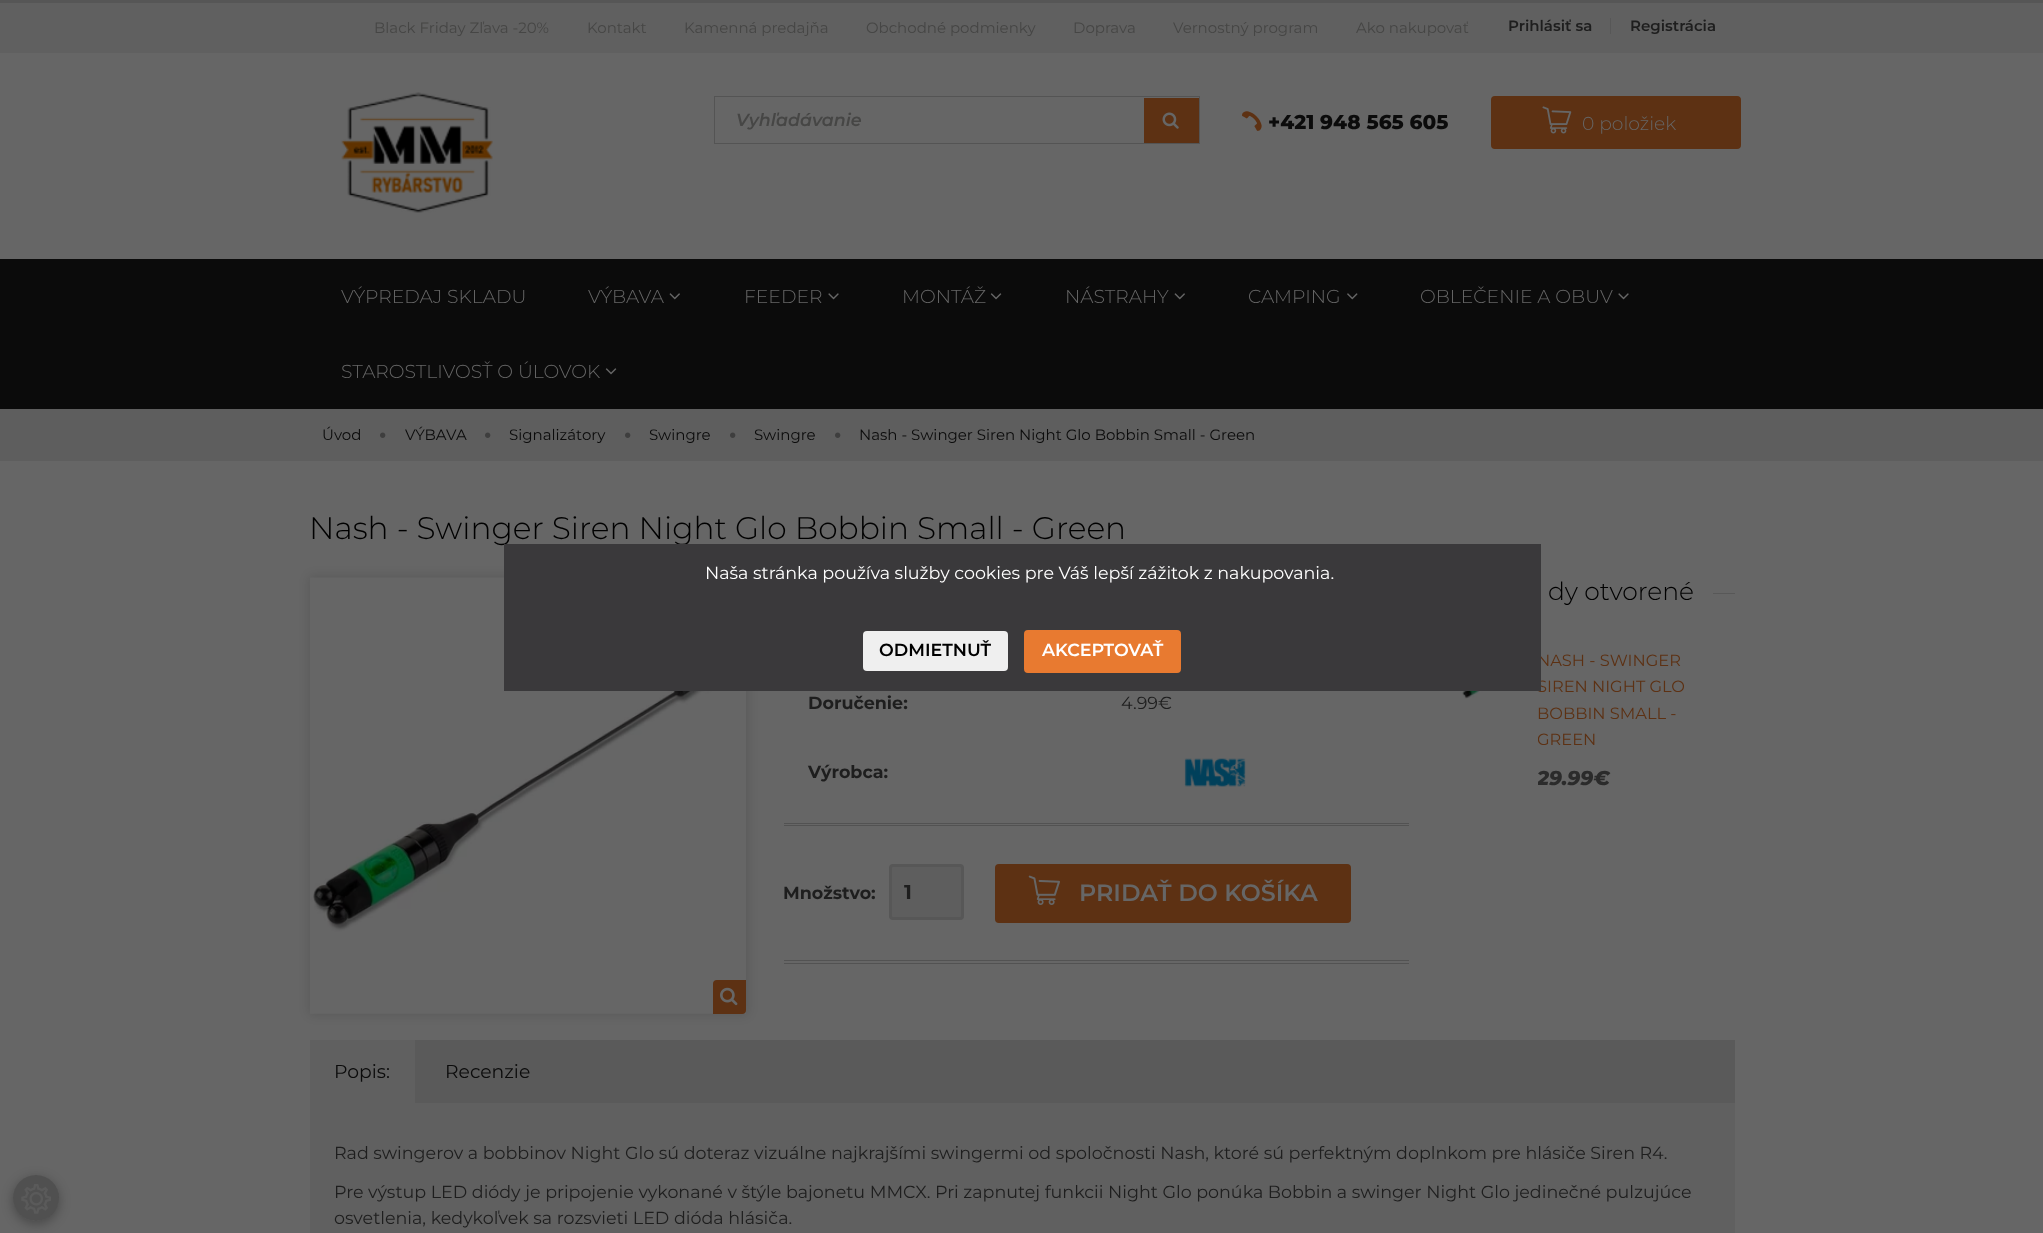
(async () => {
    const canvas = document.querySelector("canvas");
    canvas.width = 2043;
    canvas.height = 1233;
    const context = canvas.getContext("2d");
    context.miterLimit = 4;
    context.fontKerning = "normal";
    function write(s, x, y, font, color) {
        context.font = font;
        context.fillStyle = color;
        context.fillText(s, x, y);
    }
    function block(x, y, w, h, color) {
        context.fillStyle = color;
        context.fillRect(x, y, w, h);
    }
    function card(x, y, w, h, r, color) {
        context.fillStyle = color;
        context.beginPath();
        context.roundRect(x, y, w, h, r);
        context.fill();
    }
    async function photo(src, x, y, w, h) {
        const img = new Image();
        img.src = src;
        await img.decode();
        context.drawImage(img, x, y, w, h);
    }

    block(0, 0, 2043, 1233, "rgb(102, 102, 102)");
    context.save();
    context.beginPath();
    context.moveTo(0, 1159);
    context.lineTo(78, 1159);
    context.lineTo(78, 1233);
    context.lineTo(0, 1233);
    context.closePath();
    context.moveTo(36, 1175);
    context.bezierCurveTo(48.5, 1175, 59, 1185.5, 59, 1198);
    context.bezierCurveTo(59, 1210.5, 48.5, 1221, 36, 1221);
    context.bezierCurveTo(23.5, 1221, 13, 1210.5, 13, 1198);
    context.bezierCurveTo(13, 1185.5, 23.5, 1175, 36, 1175);
    context.closePath();
    context.clip("evenodd");
    context.fillStyle = "rgba(0, 0, 0, 0.3)";
    context.filter = "blur(6px)";
    context.beginPath();
    context.roundRect(13, 1178, 46, 46, 23);
    context.fill();
    context.filter = "none";
    context.restore();
    context.fillStyle = "rgba(31, 31, 31, 0.3)";
    context.beginPath();
    context.arc(36, 1198, 23, 0, Math.PI * 2);
    context.fill();
    await photo("media/1.png", 21, 1184, 30, 30);
    block(0, 0, 2043, 3, "rgb(86, 86, 86)");
    block(0, 3, 2043, 50, "rgb(96, 96, 96)");
    write("Black Friday Zľava -20%", 374, 33, "15px Montserrat", "rgb(70, 70, 69)");
    write("Kontakt", 587, 33, "15px Montserrat", "rgb(70, 70, 69)");
    write("Kamenná predajňa", 684, 33, "15px Montserrat", "rgb(70, 70, 69)");
    write("Obchodné podmienky", 866, 33, "15px Montserrat", "rgb(70, 70, 69)");
    write("Doprava", 1073, 33, "15px Montserrat", "rgb(70, 70, 69)");
    write("Vernostný program", 1173, 33, "15px Montserrat", "rgb(70, 70, 69)");
    write("Ako nakupovať", 1356, 33, "15px Montserrat", "rgb(70, 70, 69)");
    write("Prihlásiť sa", 1508, 31, "600 15px Montserrat", "rgb(30, 30, 30)");
    block(1610, 18, 1, 16, "rgb(87, 87, 87)");
    write("Registrácia", 1630, 31, "600 15px Montserrat", "rgb(30, 30, 30)");
    await photo("media/2.png", 341, 92, 152, 121);
    context.strokeStyle = "rgb(84, 84, 84)";
    context.strokeRect(714.5, 96.5, 485, 47);
    write("Vyhľadávanie", 736, 126, "italic 600 17.5px Montserrat", "rgb(70, 70, 69)");
    block(1144, 98, 55, 45, "rgb(93, 49, 19)");
    await photo("media/3.png", 1162, 112, 17, 17);
    await photo("media/4.png", 1242, 111, 20, 20);
    write("+421 948 565 605", 1268, 129, "800 20px Montserrat", "rgb(11, 11, 11)");
    context.fillStyle = "rgb(93, 49, 19)";
    context.beginPath();
    context.roundRect(1492.5, 97.5, 247, 50, 2.5);
    context.fill();
    context.strokeStyle = "rgb(93, 49, 19)";
    context.lineWidth = 3;
    context.stroke();
    await photo("media/5.png", 1542, 106, 30, 28);
    write("0 položiek", 1582, 130, "300 18.75px Montserrat", "rgb(102, 102, 102)");
    block(0, 259, 2043, 150, "rgb(11, 11, 11)");
    write("VÝPREDAJ SKLADU", 341, 303, "300 18.75px Montserrat", "rgb(102, 102, 102)");
    write("VÝBAVA", 588, 303, "300 18.75px Montserrat", "rgb(102, 102, 102)");
    await photo("media/6.png", 669, 293, 11, 7);
    write("FEEDER", 744, 303, "300 18.75px Montserrat", "rgb(102, 102, 102)");
    await photo("media/7.png", 828, 293, 11, 7);
    write("MONTÁŽ", 902, 303, "300 18.75px Montserrat", "rgb(102, 102, 102)");
    await photo("media/8.png", 990, 293, 12, 7);
    write("NÁSTRAHY", 1065, 303, "300 18.75px Montserrat", "rgb(102, 102, 102)");
    await photo("media/6.png", 1174, 293, 11, 7);
    write("CAMPING", 1248, 303, "300 18.75px Montserrat", "rgb(102, 102, 102)");
    await photo("media/9.png", 1347, 293, 11, 7);
    write("OBLEČENIE A OBUV", 1420, 303, "300 18.75px Montserrat", "rgb(102, 102, 102)");
    await photo("media/7.png", 1618, 293, 11, 7);
    write("STAROSTLIVOSŤ O ÚLOVOK", 341, 378, "300 18.75px Montserrat", "rgb(102, 102, 102)");
    await photo("media/8.png", 605, 368, 12, 7);
    block(0, 409, 2043, 52, "rgb(94, 94, 94)");
    write("Úvod", 322, 440, "15px Montserrat", "rgb(11, 11, 11)");
    await photo("media/10.png", 380, 432, 6, 6);
    write("VÝBAVA", 405, 440, "15px Montserrat", "rgb(11, 11, 11)");
    await photo("media/10.png", 485, 432, 6, 6);
    write("Signalizátory", 509, 440, "15px Montserrat", "rgb(11, 11, 11)");
    await photo("media/10.png", 625, 432, 6, 6);
    write("Swingre", 649, 440, "15px Montserrat", "rgb(11, 11, 11)");
    await photo("media/10.png", 730, 432, 6, 6);
    write("Swingre", 754, 440, "15px Montserrat", "rgb(11, 11, 11)");
    await photo("media/10.png", 835, 432, 6, 6);
    write("Nash - Swinger Siren Night Glo Bobbin Small - Green", 859, 440, "15px Montserrat", "rgb(11, 11, 11)");
    write("Nash - Swinger Siren Night Glo Bobbin Small - Green", 309, 539, "300 31.25px Montserrat", "rgb(0, 0, 0)");
    context.fillStyle = "rgba(0, 0, 0, 0.1)";
    context.filter = "blur(5px)";
    context.beginPath();
    context.roundRect(308, 575, 441, 441, 6);
    context.fill();
    context.filter = "none";
    await photo("media/11.png", 310, 577, 436, 437);
    context.fillStyle = "rgb(93, 49, 19)";
    context.beginPath();
    context.roundRect(713, 980, 33, 34, [4, 0, 4, 0]);
    context.fill();
    await photo("media/12.png", 720, 987, 18, 19);
    write("Doručenie:", 808, 709, "bold 17.5px Montserrat", "rgb(30, 30, 30)");
    write("4.99€", 1121, 709, "17.5px Montserrat", "rgb(30, 30, 30)");
    write("Výrobca:", 808, 778, "bold 17.5px Montserrat", "rgb(30, 30, 30)");
    await photo("media/13.png", 1184, 758, 62, 29);
    block(784, 823, 625, 1, "rgb(82, 82, 82)");
    block(784, 825, 625, 1, "rgb(82, 82, 82)");
    block(784, 960, 625, 1, "rgb(82, 82, 82)");
    block(784, 963, 625, 1, "rgb(82, 82, 82)");
    write("Množstvo:", 783, 899, "bold 17.5px Montserrat", "rgb(30, 30, 30)");
    context.fillStyle = "rgb(94, 94, 94)";
    context.beginPath();
    context.roundRect(890.5, 865.5, 72, 53, 2.5);
    context.fill();
    context.strokeStyle = "rgb(87, 87, 87)";
    context.stroke();
    context.save();
    context.beginPath();
    context.rect(904, 880, 32, 24);
    context.clip();
    write("1", 904, 899, "bold 20px Montserrat", "rgb(30, 30, 30)");
    context.restore();
    context.fillStyle = "rgb(93, 49, 19)";
    context.beginPath();
    context.roundRect(996.5, 865.5, 353, 56, 2.5);
    context.fill();
    context.strokeStyle = "rgb(93, 49, 19)";
    context.stroke();
    await photo("media/14.png", 1028, 875, 32, 30);
    write("PRIDAŤ DO KOŠÍKA", 1079, 901, "600 23.75px Montserrat", "rgb(102, 102, 102)");
    write("dy otvorené", 1548, 600, "300 25px Montserrat", "rgb(0, 0, 0)");
    block(1713, 593, 22, 1, "rgb(88, 88, 88)");
    await photo("media/15.png", 1462, 691, 63, 8);
    write("NASH - SWINGER", 1537, 666, "16.25px Montserrat", "rgb(93, 49, 19)");
    write("SIREN NIGHT GLO", 1537, 692, "16.25px Montserrat", "rgb(93, 49, 19)");
    write("BOBBIN SMALL -", 1537, 719, "16.25px Montserrat", "rgb(93, 49, 19)");
    context.save();
    context.beginPath();
    context.rect(1538, 648, 182, 151);
    context.clip();
    write("GREEN", 1537, 745, "16.25px Montserrat", "rgb(93, 49, 19)");
    write("29.99€", 1537, 785, "italic 800 20px Montserrat", "rgb(43, 43, 43)");
    context.restore();
    block(415, 1040, 1320, 63, "rgb(90, 90, 90)");
    block(310, 1040, 105, 63, "rgb(96, 96, 96)");
    write("Popis:", 334, 1078, "18.75px Montserrat", "rgb(11, 11, 11)");
    write("Recenzie", 445, 1078, "18.75px Montserrat", "rgb(11, 11, 11)");
    block(310, 1103, 1425, 130, "rgb(96, 96, 96)");
    write("Rad swingerov a bobbinov Night Glo sú doteraz vizuálne najkrajšími swingermi od spoločnosti Nash, ktoré sú perfektným doplnkom pre hlásiče Siren R4.", 334, 1159, "17.5px Montserrat", "rgb(30, 30, 30)");
    write("Pre výstup LED diódy je pripojenie vykonané v štýle bajonetu MMCX. Pri zapnutej funkcii Night Glo ponúka Bobbin a swinger Night Glo jedinečné pulzujúce", 334, 1198, "17.5px Montserrat", "rgb(30, 30, 30)");
    write("osvetlenia, kedykoľvek sa rozsvieti LED dióda hlásiča.", 334, 1224, "17.5px Montserrat", "rgb(30, 30, 30)");
    block(504, 544, 1037, 147, "rgb(58, 57, 59)");
    write("Naša stránka používa služby cookies pre Váš lepší zážitok z nakupovania.", 705, 579, "17.5px Montserrat", "rgb(255, 255, 255)");
    card(863, 631, 145, 40, 4, "rgb(239, 239, 239)");
    write("ODMIETNUŤ", 879, 656, "600 17.5px Montserrat", "rgb(0, 0, 0)");
    context.fillStyle = "rgb(232, 122, 48)";
    context.beginPath();
    context.roundRect(1025.5, 631.5, 154, 40, 2.5);
    context.fill();
    context.strokeStyle = "rgb(232, 122, 48)";
    context.stroke();
    write("AKCEPTOVAŤ", 1042, 656, "600 17.5px Montserrat", "rgb(255, 255, 255)");
})();
